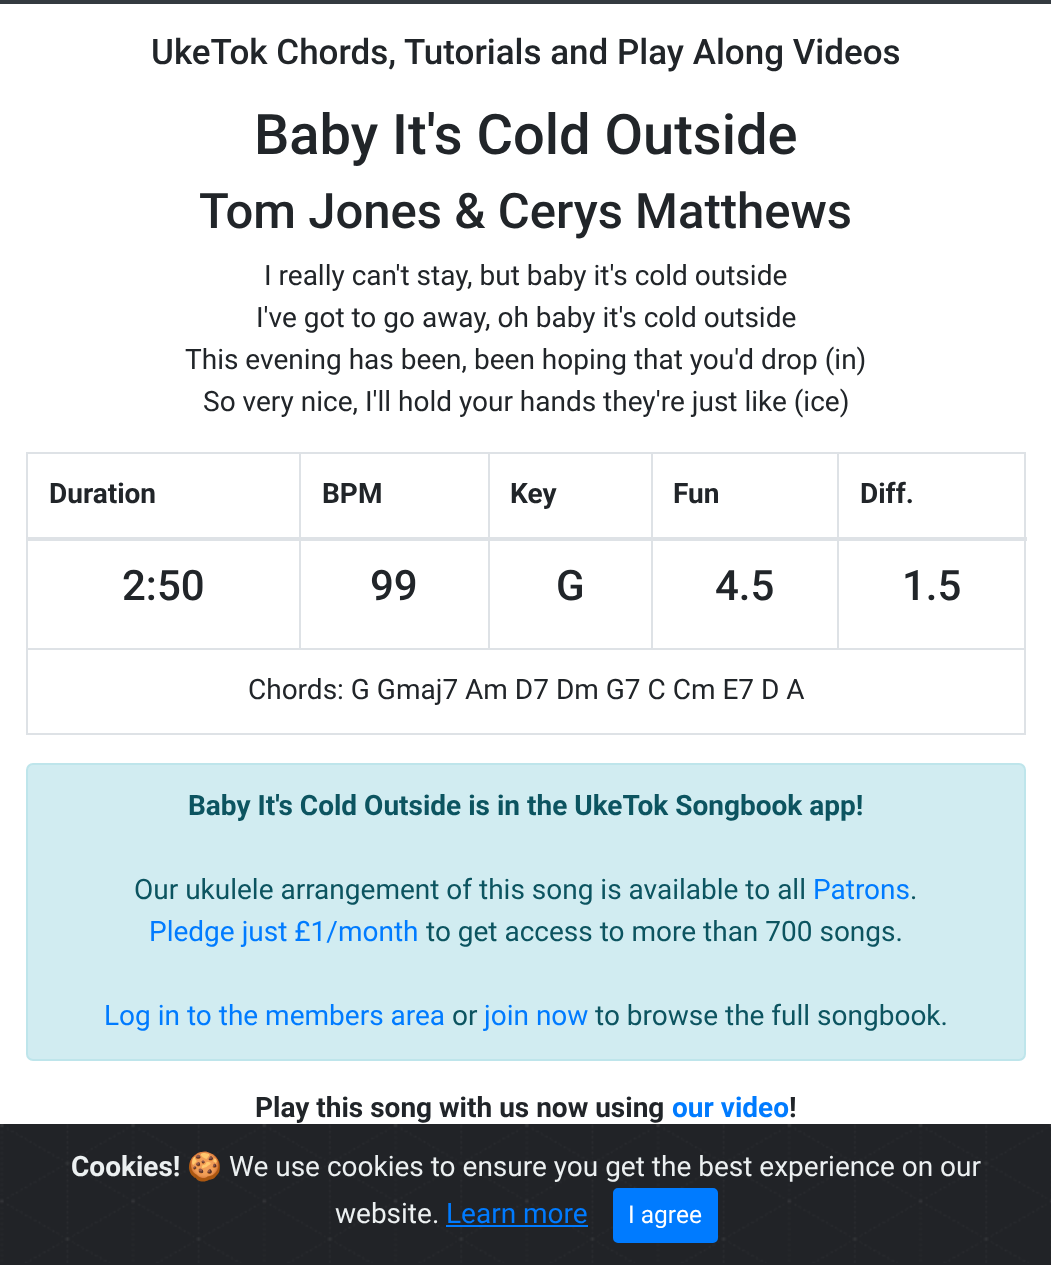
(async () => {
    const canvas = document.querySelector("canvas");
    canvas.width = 1051;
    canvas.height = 1265;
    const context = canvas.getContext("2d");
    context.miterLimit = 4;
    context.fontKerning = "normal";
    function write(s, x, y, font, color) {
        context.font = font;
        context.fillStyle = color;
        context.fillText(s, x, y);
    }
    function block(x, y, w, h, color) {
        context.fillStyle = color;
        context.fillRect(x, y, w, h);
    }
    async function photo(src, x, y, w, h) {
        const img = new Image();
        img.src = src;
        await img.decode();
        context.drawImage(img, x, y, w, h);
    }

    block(0, 0, 1051, 1265, "rgb(255, 255, 255)");
    block(0, 0, 1051, 4, "rgb(52, 58, 64)");
    write("UkeTok Chords, Tutorials and Play Along Videos", 151, 64, "500 35px Roboto", "rgb(33, 37, 41)");
    write("Baby It's Cold Outside", 254, 154, "500 56px Roboto", "rgb(33, 37, 41)");
    write("Tom Jones & Cerys Matthews", 199, 228, "500 49px Roboto", "rgb(33, 37, 41)");
    write("I really can't stay, but baby it's cold outside", 264, 285, "28px Roboto", "rgb(33, 37, 41)");
    write("I've got to go away, oh baby it's cold outside", 256, 327, "28px Roboto", "rgb(33, 37, 41)");
    write("This evening has been, been hoping that you'd drop (in)", 185, 369, "28px Roboto", "rgb(33, 37, 41)");
    write("So very nice, I'll hold your hands they're just like (ice)", 203, 411, "28px Roboto", "rgb(33, 37, 41)");
    block(26, 452, 1000, 2, "rgb(222, 226, 230)");
    block(1024, 452, 2, 283, "rgb(222, 226, 230)");
    block(26, 733, 1000, 2, "rgb(222, 226, 230)");
    block(26, 452, 2, 283, "rgb(222, 226, 230)");
    write("Duration", 49, 503, "bold 28px Roboto", "rgb(33, 37, 41)");
    write("BPM", 322, 503, "bold 28px Roboto", "rgb(33, 37, 41)");
    write("Key", 510, 503, "bold 28px Roboto", "rgb(33, 37, 41)");
    write("Fun", 673, 503, "bold 28px Roboto", "rgb(33, 37, 41)");
    block(26, 648, 1000, 2, "rgb(222, 226, 230)");
    block(299, 452, 2, 197, "rgb(222, 226, 230)");
    block(488, 452, 2, 197, "rgb(222, 226, 230)");
    block(651, 452, 2, 197, "rgb(222, 226, 230)");
    block(837, 452, 2, 197, "rgb(222, 226, 230)");
    block(26, 537, 1001, 4, "rgb(222, 226, 230)");
    write("Diff.", 860, 503, "bold 28px Roboto", "rgb(33, 37, 41)");
    write("2:50", 122, 600, "500 42px Roboto", "rgb(33, 37, 41)");
    write("99", 370, 600, "500 42px Roboto", "rgb(33, 37, 41)");
    write("G", 556, 600, "500 42px Roboto", "rgb(33, 37, 41)");
    write("4.5", 715, 600, "500 42px Roboto", "rgb(33, 37, 41)");
    write("1.5", 902, 600, "500 42px Roboto", "rgb(33, 37, 41)");
    write("Chords: G Gmaj7 Am D7 Dm G7 C Cm E7 D A", 248, 699, "28px Roboto", "rgb(33, 37, 41)");
    context.fillStyle = "rgb(209, 236, 241)";
    context.beginPath();
    context.roundRect(27, 764, 998, 296, 6);
    context.fill();
    context.strokeStyle = "rgb(190, 229, 235)";
    context.lineWidth = 2;
    context.stroke();
    write("Baby It's Cold Outside is in the UkeTok Songbook app!", 188, 815, "bold 28px Roboto", "rgb(12, 84, 96)");
    write("Our ukulele arrangement of this song is available to all", 134, 899, "28px Roboto", "rgb(12, 84, 96)");
    write("Patrons", 813, 899, "28px Roboto", "rgb(0, 123, 255)");
    write(".", 910, 899, "28px Roboto", "rgb(12, 84, 96)");
    write("Pledge just £1/month", 149, 941, "28px Roboto", "rgb(0, 123, 255)");
    write("to get access to more than 700 songs.", 426, 941, "28px Roboto", "rgb(12, 84, 96)");
    write("Log in to the members area", 104, 1025, "28px Roboto", "rgb(0, 123, 255)");
    write("or", 452, 1025, "28px Roboto", "rgb(12, 84, 96)");
    write("join now", 484, 1025, "28px Roboto", "rgb(0, 123, 255)");
    write("to browse the full songbook.", 595, 1025, "28px Roboto", "rgb(12, 84, 96)");
    write("Play this song with us now using", 255, 1117, "bold 28px Roboto", "rgb(33, 37, 41)");
    write("our video", 672, 1117, "bold 28px Roboto", "rgb(0, 123, 255)");
    write("!", 789, 1117, "bold 28px Roboto", "rgb(33, 37, 41)");
    block(0, 1263, 1051, 2, "rgb(33, 35, 39)");
    await photo("media/1.png", 0, 1124, 1051, 139);
    write("Cookies!", 71, 1176, "bold 28px Roboto", "rgb(236, 240, 241)");
    write("🍪", 187, 1176, "28px Noto Color Emoji", "rgb(236, 240, 241)");
    write("We use cookies to ensure you get the best experience on our", 229, 1176, "28px Roboto", "rgb(236, 240, 241)");
    write("website.", 335, 1223, "28px Roboto", "rgb(236, 240, 241)");
    write("Learn more", 446, 1223, "28px Roboto", "rgb(0, 123, 255)");
    block(446, 1225, 142, 2, "rgb(0, 123, 255)");
    context.beginPath();
    context.roundRect(614, 1189, 103, 53, 4);
    context.fill();
    context.strokeStyle = "rgb(0, 123, 255)";
    context.stroke();
    write("I agree", 628, 1223, "24.5px Roboto", "rgb(255, 255, 255)");
})();
